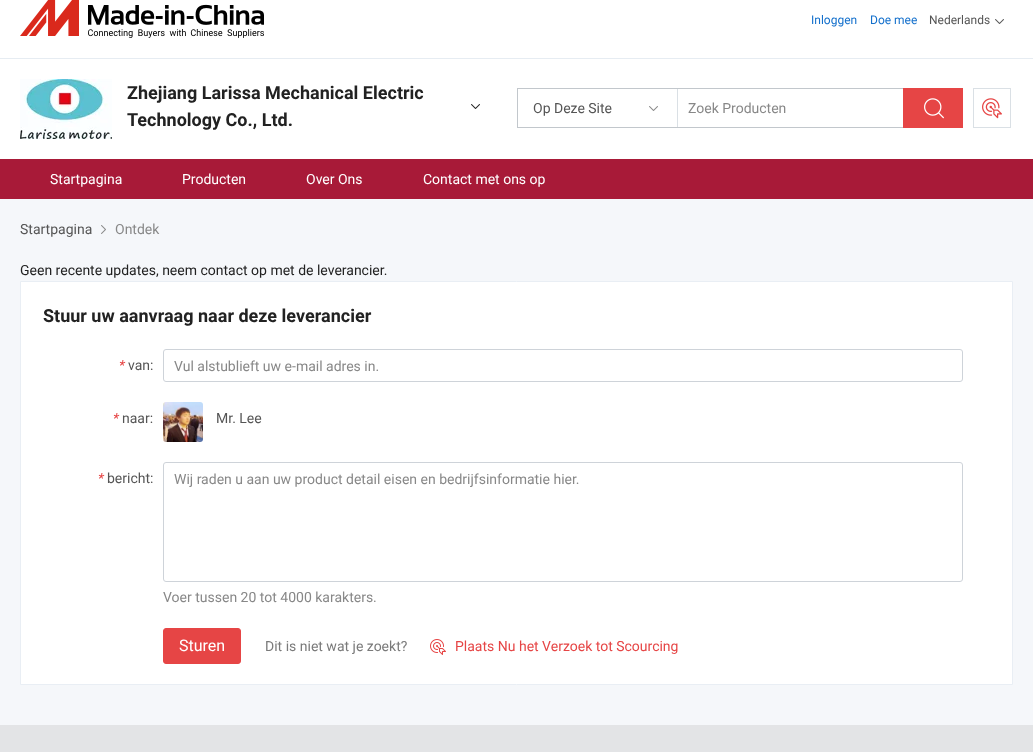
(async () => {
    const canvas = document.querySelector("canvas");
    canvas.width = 1033;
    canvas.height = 752;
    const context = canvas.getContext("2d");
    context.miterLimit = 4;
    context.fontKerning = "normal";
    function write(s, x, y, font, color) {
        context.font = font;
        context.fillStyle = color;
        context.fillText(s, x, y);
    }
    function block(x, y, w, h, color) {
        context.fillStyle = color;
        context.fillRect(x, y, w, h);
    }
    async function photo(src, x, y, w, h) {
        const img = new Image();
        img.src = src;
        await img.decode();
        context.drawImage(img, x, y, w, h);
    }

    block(0, 0, 1033, 752, "rgb(255, 255, 255)");
    block(0, 58, 1033, 1, "rgb(230, 236, 242)");
    await photo("media/1.png", 20, 79, 92, 60);
    write("Zhejiang Larissa Mechanical Electric", 127, 99, "bold 18px Roboto", "rgb(34, 34, 34)");
    write("Technology Co., Ltd.", 127, 126, "bold 18px Roboto", "rgb(34, 34, 34)");
    await photo("media/2.png", 471, 104, 9, 5);
    await photo("media/3.png", 20, 0, 244, 38);
    write("Inloggen", 811, 24, "12px Roboto", "rgb(20, 112, 204)");
    write("Doe mee", 870, 24, "12px Roboto", "rgb(20, 112, 204)");
    write("Nederlands", 929, 24, "12px Roboto", "rgb(85, 85, 85)");
    await photo("media/4.png", 995, 19, 9, 5);
    context.strokeStyle = "rgb(194, 199, 204)";
    context.strokeRect(517.5, 88.5, 445, 39);
    block(677, 89, 1, 38, "rgb(218, 224, 229)");
    write("Op Deze Site", 533, 113, "14px Roboto", "rgb(85, 85, 85)");
    await photo("media/5.png", 649, 106, 9, 5);
    write("Zoek Producten", 688, 113, "14px Roboto", "rgb(136, 136, 136)");
    block(903, 88, 60, 40, "rgb(230, 69, 69)");
    await photo("media/6.png", 924, 98, 20, 21);
    context.strokeStyle = "rgb(218, 224, 229)";
    context.strokeRect(973.5, 88.5, 37, 39);
    await photo("media/7.png", 982, 98, 20, 21);
    block(0, 159, 1033, 40, "rgb(168, 26, 56)");
    write("Startpagina", 50, 184, "14px Roboto", "rgb(255, 255, 255)");
    write("Producten", 182, 184, "14px Roboto", "rgb(255, 255, 255)");
    write("Over Ons", 306, 184, "14px Roboto", "rgb(255, 255, 255)");
    write("Contact met ons op", 423, 184, "14px Roboto", "rgb(255, 255, 255)");
    block(0, 199, 1033, 526, "rgb(245, 247, 250)");
    write("Startpagina", 20, 234, "14px Roboto", "rgb(85, 85, 85)");
    await photo("media/8.png", 101, 225, 5, 9);
    write("Ontdek", 115, 234, "14px Roboto", "rgb(136, 136, 136)");
    write("Geen recente updates, neem contact op met de leverancier.", 20, 275, "14px Roboto", "rgb(34, 34, 34)");
    context.fillStyle = "rgb(255, 255, 255)";
    context.beginPath();
    context.rect(20.5, 281.5, 992, 403);
    context.fill();
    context.strokeStyle = "rgb(233, 238, 244)";
    context.stroke();
    write("Stuur uw aanvraag naar deze leverancier", 43, 322, "bold 18px Roboto", "rgb(34, 34, 34)");
    write("*", 119, 370, "italic 14px Roboto", "rgb(230, 69, 69)");
    write("van:", 128, 370, "14px Roboto", "rgb(85, 85, 85)");
    context.beginPath();
    context.roundRect(163.5, 349.5, 799, 32, 2.5);
    context.strokeStyle = "rgb(206, 211, 217)";
    context.stroke();
    write("Vul alstublieft uw e-mail adres in.", 174, 371, "14px Roboto", "rgb(136, 136, 136)");
    write("*", 113, 423, "italic 14px Roboto", "rgb(230, 69, 69)");
    write("naar:", 122, 423, "14px Roboto", "rgb(85, 85, 85)");
    await photo("media/9.png", 163, 402, 40, 40);
    write("Mr. Lee", 216, 423, "14px Roboto", "rgb(85, 85, 85)");
    write("*", 98, 483, "italic 14px Roboto", "rgb(230, 69, 69)");
    write("bericht:", 107, 483, "14px Roboto", "rgb(85, 85, 85)");
    context.beginPath();
    context.roundRect(163.5, 462.5, 799, 119, 2.5);
    context.stroke();
    write("Wij raden u aan uw product detail eisen en bedrijfsinformatie hier.", 174, 484, "14px Roboto", "rgb(136, 136, 136)");
    write("Voer tussen 20 tot 4000 karakters.", 163, 602, "14px Roboto", "rgb(136, 136, 136)");
    context.fillStyle = "rgb(230, 69, 69)";
    context.beginPath();
    context.roundRect(163.5, 628.5, 77, 35, 2.5);
    context.fill();
    context.strokeStyle = "rgb(230, 69, 69)";
    context.stroke();
    write("Sturen", 179, 651, "16px Roboto", "rgb(255, 255, 255)");
    write("Dit is niet wat je zoekt?", 265, 651, "14px Roboto", "rgb(122, 122, 122)");
    await photo("media/10.png", 430, 639, 16, 16);
    write("Plaats Nu het Verzoek tot Scourcing", 455, 651, "14px Roboto", "rgb(230, 69, 69)");
    block(0, 725, 1033, 27, "rgb(227, 228, 230)");
})();
